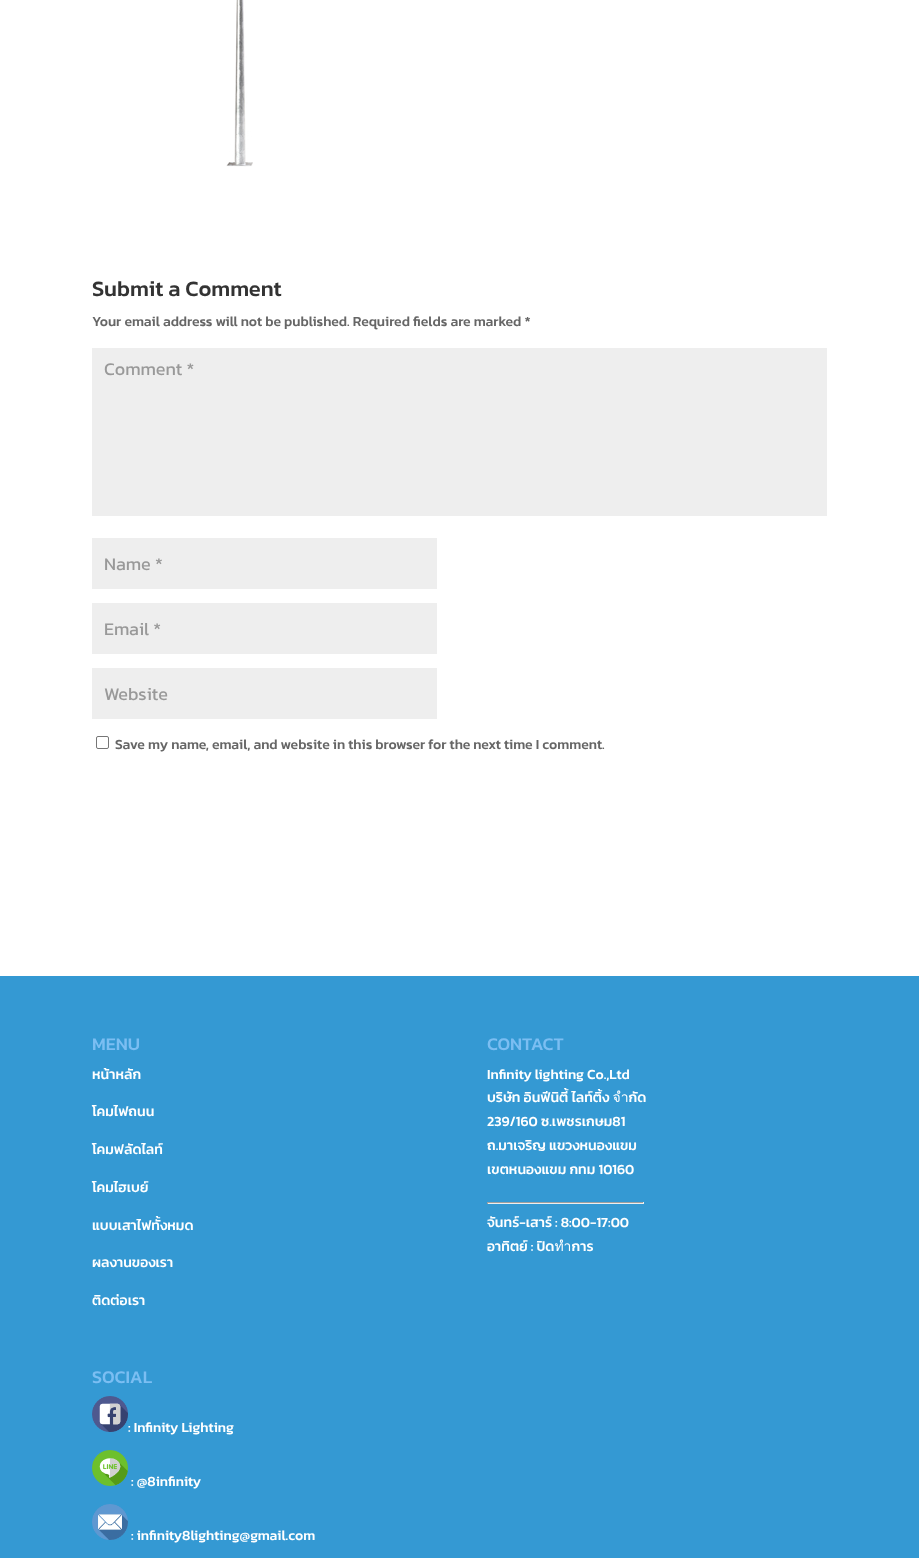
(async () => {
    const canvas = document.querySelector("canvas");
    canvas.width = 919;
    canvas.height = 1558;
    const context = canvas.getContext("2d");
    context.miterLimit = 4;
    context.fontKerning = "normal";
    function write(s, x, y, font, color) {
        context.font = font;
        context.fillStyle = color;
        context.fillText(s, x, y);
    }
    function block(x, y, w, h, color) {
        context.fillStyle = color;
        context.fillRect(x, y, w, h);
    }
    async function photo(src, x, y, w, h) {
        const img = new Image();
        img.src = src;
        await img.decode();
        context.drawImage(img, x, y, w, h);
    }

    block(0, 0, 919, 1558, "rgb(255, 255, 255)");
    await photo("media/1.png", 226, 0, 27, 167);
    write("Submit a Comment", 92, 296, "500 22px Kanit", "rgb(51, 51, 51)");
    write("Your email address will not be published. Required fields are marked *", 92, 326, "500 14px Kanit", "rgb(102, 102, 102)");
    block(92, 348, 735, 168, "rgb(238, 238, 238)");
    write("Comment *", 104, 375, "18px Kanit", "rgb(153, 153, 153)");
    block(92, 538, 345, 51, "rgb(238, 238, 238)");
    write("Name *", 104, 570, "18px Kanit", "rgb(153, 153, 153)");
    block(92, 603, 345, 51, "rgb(238, 238, 238)");
    write("Email *", 104, 635, "18px Kanit", "rgb(153, 153, 153)");
    block(92, 668, 345, 51, "rgb(238, 238, 238)");
    write("Website", 104, 700, "18px Kanit", "rgb(153, 153, 153)");
    context.beginPath();
    context.roundRect(96.5, 736.5, 12, 12, 1.5);
    context.strokeStyle = "rgb(118, 118, 118)";
    context.stroke();
    write("Save my name, email, and website in this browser for the next time I comment.", 115, 749, "500 14px Kanit", "rgb(102, 102, 102)");
    block(0, 976, 919, 582, "rgb(52, 153, 211)");
    write("MENU", 92, 1050, "500 18px Kanit", "rgb(123, 190, 242)");
    write("หน้าหลัก", 92, 1079, "500 14px Kanit", "rgb(255, 255, 255)");
    write("โคมไฟถนน", 92, 1116, "500 14px Kanit", "rgb(255, 255, 255)");
    write("โคมฟลัดไลท์", 92, 1154, "500 14px Kanit", "rgb(255, 255, 255)");
    write("โคมไฮเบย์", 92, 1192, "500 14px Kanit", "rgb(255, 255, 255)");
    write("แบบเสาไฟทั้งหมด", 92, 1230, "500 14px Kanit", "rgb(255, 255, 255)");
    write("ผลงานของเรา", 92, 1267, "500 14px Kanit", "rgb(255, 255, 255)");
    write("ติดต่อเรา", 92, 1305, "500 14px Kanit", "rgb(255, 255, 255)");
    write("CONTACT", 487, 1050, "500 18px Kanit", "rgb(123, 190, 242)");
    write("Infinity lighting Co.,Ltd", 487, 1079, "500 14px Kanit", "rgb(255, 255, 255)");
    write("บริษัท อินฟีนิตี้ ไลท์ติ้ง จำกัด", 487, 1102, "500 14px Kanit", "rgb(255, 255, 255)");
    write("239/160 ซ.เพชรเกษม81", 487, 1126, "500 14px Kanit", "rgb(255, 255, 255)");
    write("ถ.มาเจริญ แขวงหนองแขม", 487, 1150, "500 14px Kanit", "rgb(255, 255, 255)");
    write("เขตหนองแขม กทม 10160", 487, 1174, "500 14px Kanit", "rgb(255, 255, 255)");
    block(487, 1202, 157, 1, "rgb(159, 159, 159)");
    block(643, 1202, 1, 2, "rgb(238, 238, 238)");
    block(487, 1203, 157, 1, "rgb(238, 238, 238)");
    block(487, 1202, 1, 2, "rgb(159, 159, 159)");
    write("จันทร์-เสาร์ : 8:00-17:00", 487, 1227, "500 14px Kanit", "rgb(255, 255, 255)");
    write("อาทิตย์ : ปิดทำการ", 487, 1251, "500 14px Kanit", "rgb(255, 255, 255)");
    write("SOCIAL", 92, 1383, "500 18px Kanit", "rgb(123, 190, 242)");
    await photo("media/2.png", 92, 1396, 36, 36);
    write(": Infinity Lighting", 128, 1432, "500 14px Kanit", "rgb(255, 255, 255)");
    await photo("media/3.png", 92, 1450, 36, 36);
    write(": @8infinity", 131, 1486, "500 14px Kanit", "rgb(255, 255, 255)");
    await photo("media/4.png", 92, 1504, 36, 36);
    write(": infinity8lighting@gmail.com", 131, 1540, "500 14px Kanit", "rgb(255, 255, 255)");
})();
